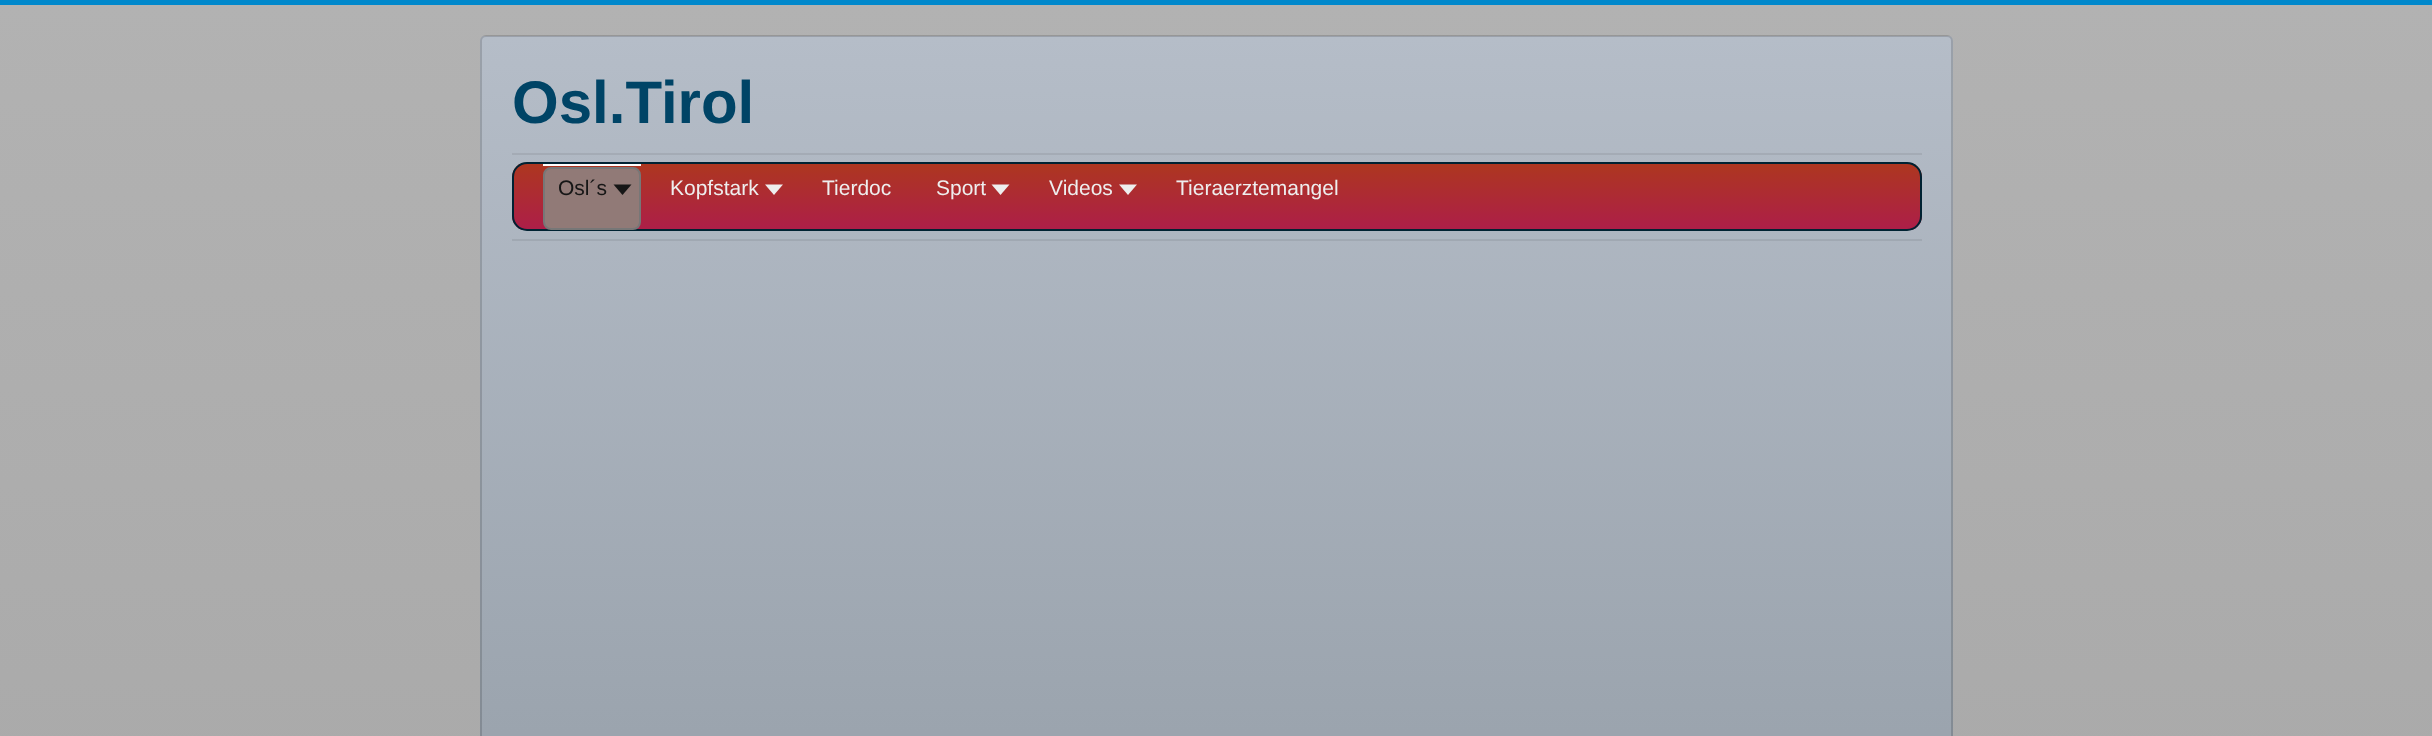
(async () => {
    const canvas = document.querySelector("canvas");
    canvas.width = 2432;
    canvas.height = 736;
    const context = canvas.getContext("2d");
    context.miterLimit = 4;
    context.fontKerning = "normal";
    function write(s, x, y, font, color) {
        context.font = font;
        context.fillStyle = color;
        context.fillText(s, x, y);
    }
    function block(x, y, w, h, color) {
        context.fillStyle = color;
        context.fillRect(x, y, w, h);
    }
    let gradient;

    block(0, 0, 2432, 736, "rgb(255, 255, 255)");
    gradient = context.createLinearGradient(1216, 0, 1217, 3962);
    gradient.addColorStop(0, "rgb(178, 178, 178)");
    gradient.addColorStop(1, "rgb(137, 137, 137)");
    context.fillStyle = gradient;
    context.fillRect(0, 5, 2432, 731);
    block(0, 0, 2432, 5, "rgb(0, 136, 204)");
    context.save();
    context.beginPath();
    context.roundRect(480, 35, 1473, 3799, 6);
    context.clip();
    gradient = context.createLinearGradient(1216, 36, 1217, 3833);
    gradient.addColorStop(0, "rgb(181, 189, 200)");
    gradient.addColorStop(0.36, "rgb(130, 140, 149)");
    gradient.addColorStop(1, "rgb(40, 52, 59)");
    context.fillStyle = gradient;
    context.fillRect(480, 36, 1473, 700);
    context.restore();
    context.beginPath();
    context.roundRect(481, 36, 1471, 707, 5);
    context.strokeStyle = "rgba(0, 0, 0, 0.15)";
    context.lineWidth = 2;
    context.stroke();
    write("Osl.Tirol", 512, 123, "bold 60px Liberation Sans", "rgb(0, 68, 102)");
    block(512, 153, 1410, 2, "rgb(164, 171, 181)");
    block(512, 239, 1410, 2, "rgb(160, 168, 178)");
    context.save();
    context.beginPath();
    context.roundRect(512, 162, 1410, 69, 15);
    context.clip();
    gradient = context.createLinearGradient(1217, 163, 1217, 230);
    gradient.addColorStop(0, "rgb(173, 55, 31)");
    gradient.addColorStop(1, "rgb(173, 30, 73)");
    context.fillStyle = gradient;
    context.fillRect(512, 164, 1410, 66);
    context.restore();
    context.beginPath();
    context.roundRect(513, 163, 1408, 67, 14);
    context.strokeStyle = "rgb(0, 34, 50)";
    context.stroke();
    block(543, 164, 98, 2, "rgb(255, 255, 255)");
    context.fillStyle = "rgb(145, 122, 119)";
    context.beginPath();
    context.roundRect(544, 168, 96, 61, 7);
    context.fill();
    context.strokeStyle = "rgb(119, 119, 119)";
    context.stroke();
    write("Osl´s", 558, 195, "21px Liberation Sans", "rgb(22, 22, 22)");
    context.beginPath();
    context.moveTo(613.5, 184.5);
    context.lineTo(631.5, 184.5);
    context.lineTo(622.5, 195);
    context.closePath();
    context.fill();
    write("Kopfstark", 670, 195, "21px Liberation Sans", "rgb(238, 238, 238)");
    context.beginPath();
    context.moveTo(765, 184.5);
    context.lineTo(783, 184.5);
    context.lineTo(774, 195);
    context.closePath();
    context.fill();
    write("Tierdoc", 822, 195, "21px Liberation Sans", "rgb(238, 238, 238)");
    write("Sport", 936, 195, "21px Liberation Sans", "rgb(238, 238, 238)");
    context.beginPath();
    context.moveTo(991.5, 184.5);
    context.lineTo(1009.5, 184.5);
    context.lineTo(1000.5, 195);
    context.closePath();
    context.fill();
    write("Videos", 1049, 195, "21px Liberation Sans", "rgb(238, 238, 238)");
    context.beginPath();
    context.moveTo(1119, 184.5);
    context.lineTo(1137, 184.5);
    context.lineTo(1128, 195);
    context.closePath();
    context.fill();
    write("Tieraerztemangel", 1176, 195, "21px Liberation Sans", "rgb(238, 238, 238)");
})();
